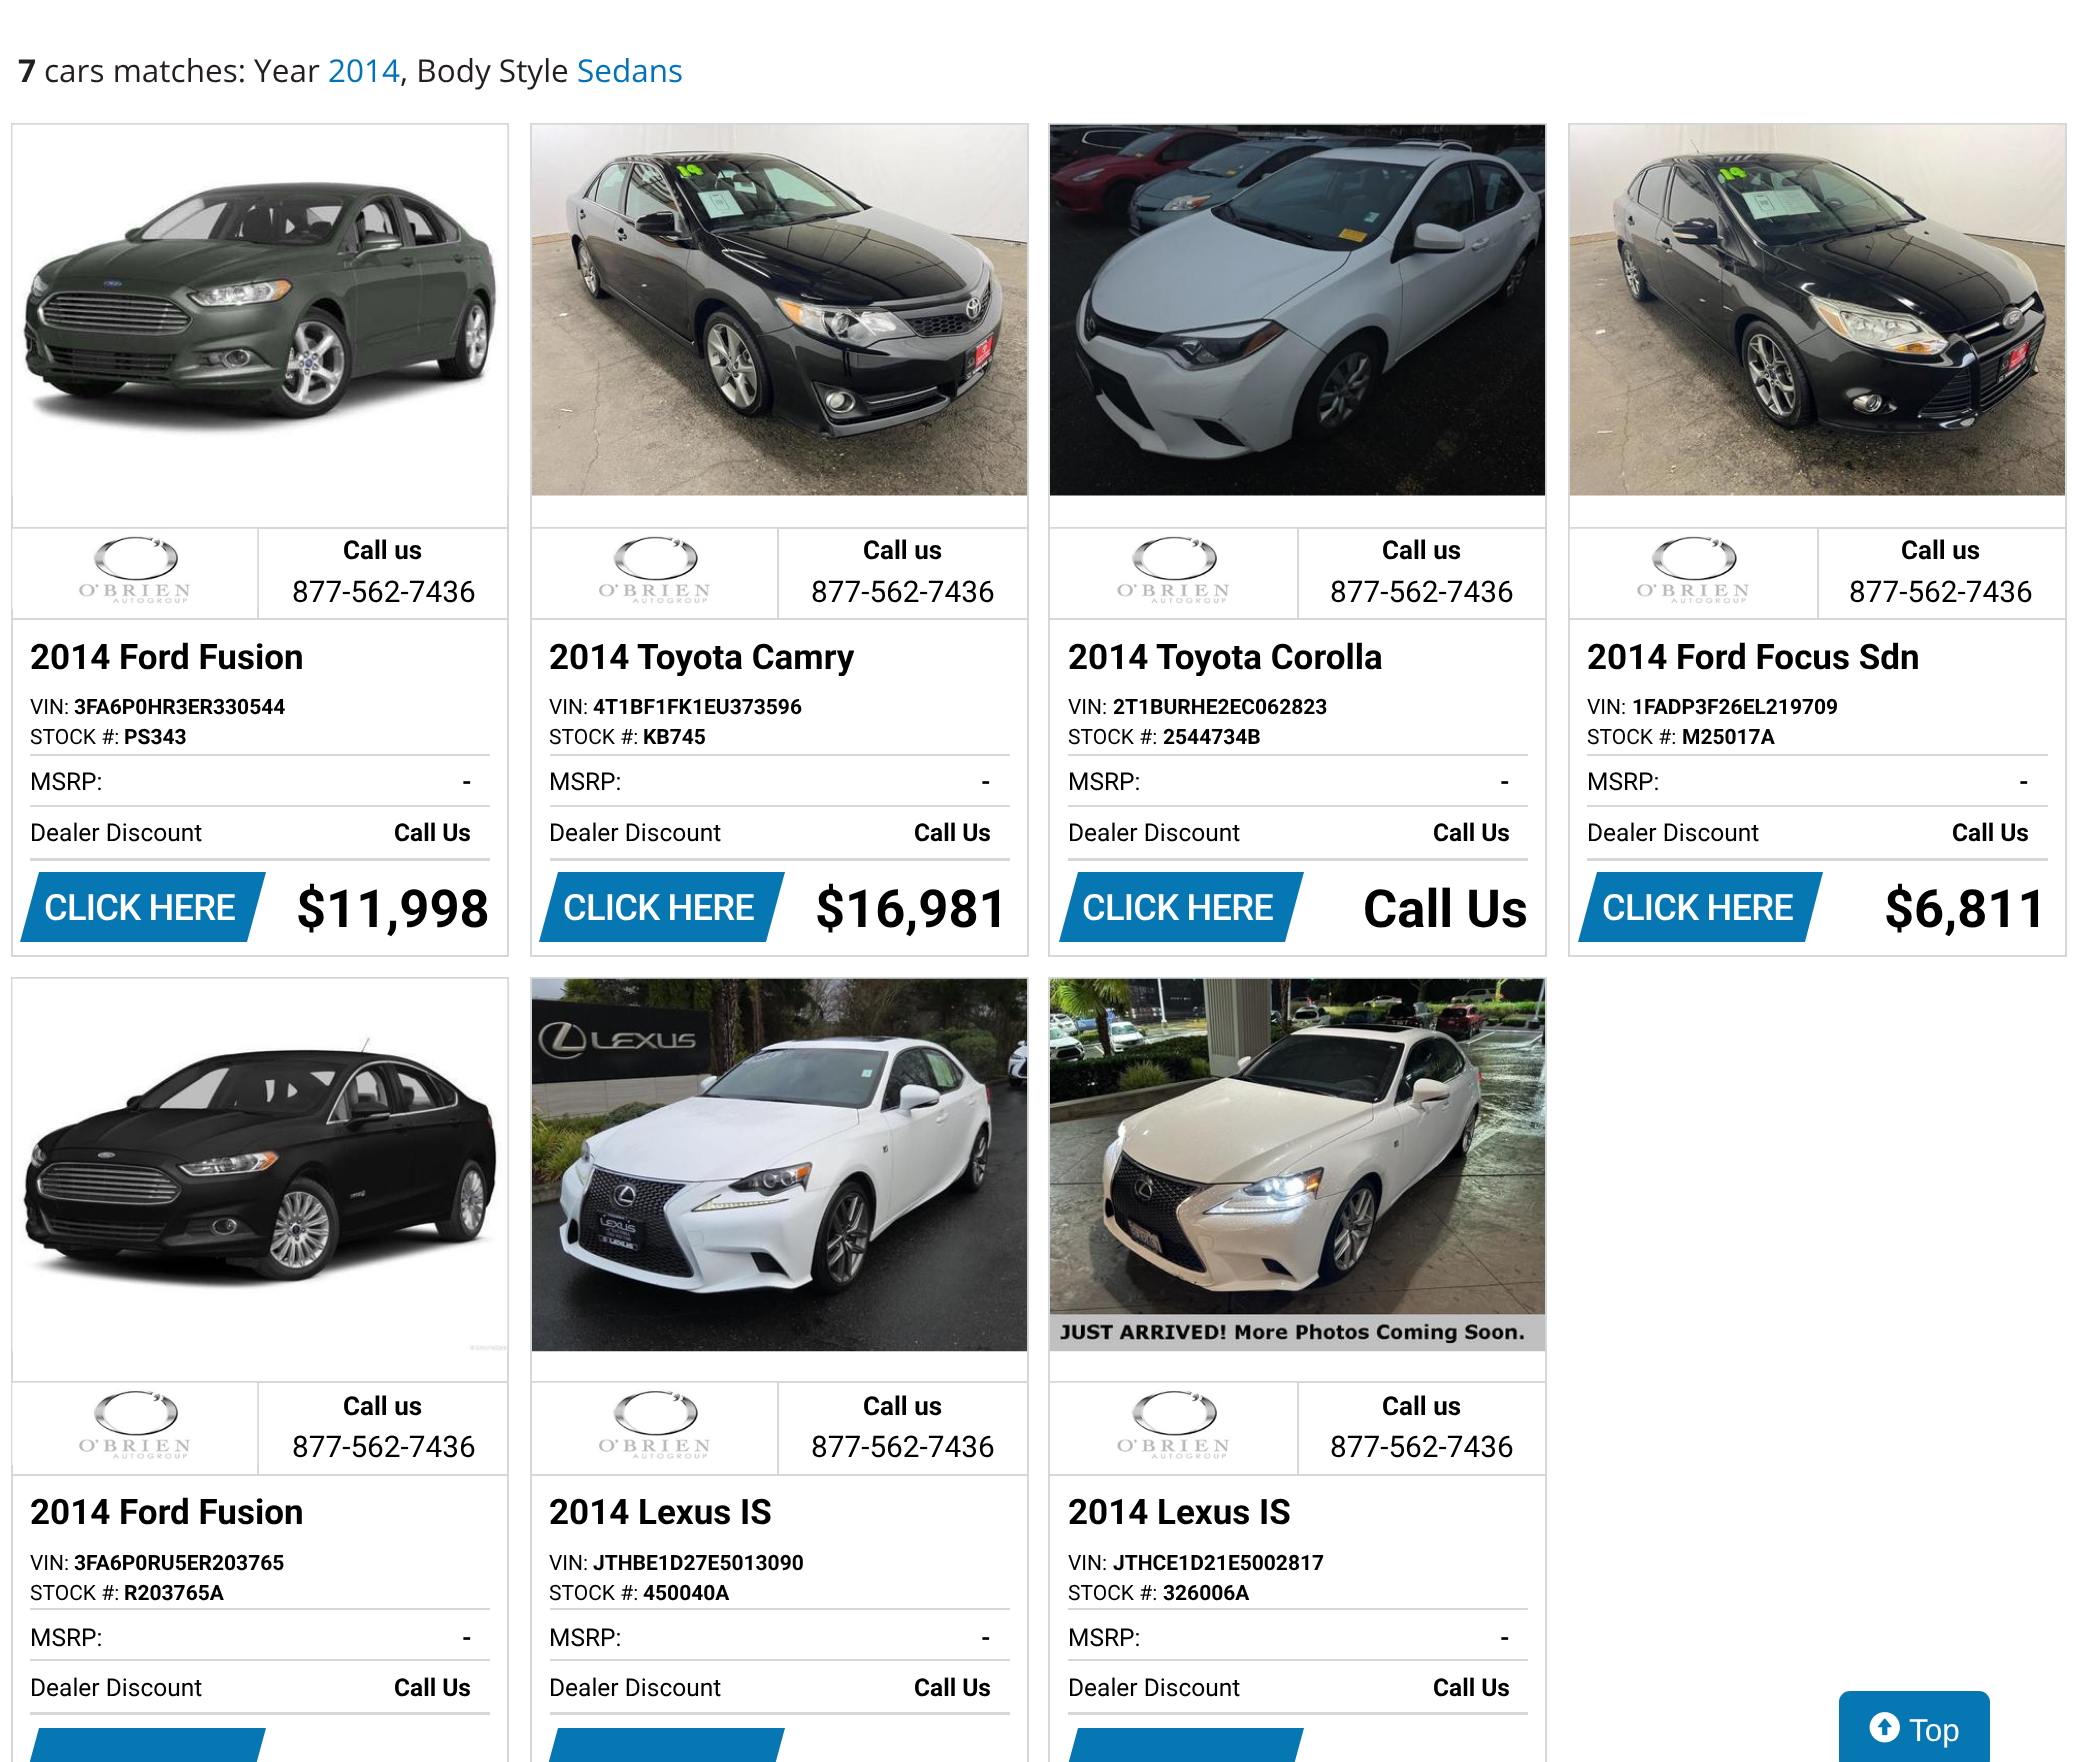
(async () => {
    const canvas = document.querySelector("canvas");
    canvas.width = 2076;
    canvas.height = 1762;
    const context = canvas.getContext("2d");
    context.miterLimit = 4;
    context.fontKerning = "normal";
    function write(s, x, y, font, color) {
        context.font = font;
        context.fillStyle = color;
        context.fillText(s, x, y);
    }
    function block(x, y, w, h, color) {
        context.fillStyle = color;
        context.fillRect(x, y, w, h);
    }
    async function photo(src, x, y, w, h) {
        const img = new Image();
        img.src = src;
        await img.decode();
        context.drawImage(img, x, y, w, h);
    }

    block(0, 0, 2076, 1762, "rgb(255, 255, 255)");
    write("7", 18, 82, "bold 31.5px Open Sans", "rgb(35, 31, 32)");
    write("cars matches: Year", 44, 82, "31.5px Open Sans", "rgb(35, 31, 32)");
    write("2014", 328, 82, "31.5px Open Sans", "rgb(0, 115, 189)");
    write(", Body Style", 400, 82, "31.5px Open Sans", "rgb(35, 31, 32)");
    write("Sedans", 577, 82, "31.5px Open Sans", "rgb(0, 115, 189)");
    context.strokeStyle = "rgb(212, 216, 217)";
    context.lineWidth = 2;
    context.strokeRect(12, 124, 496, 832);
    await photo("media/1.png", 12, 124, 496, 372);
    block(12, 527, 496, 2, "rgb(212, 216, 217)");
    block(257, 527, 2, 93, "rgb(212, 216, 217)");
    block(12, 618, 496, 2, "rgb(212, 216, 217)");
    await photo("media/2.png", 12, 528, 246, 82);
    write("Call us", 343, 559, "bold 26px Roboto", "rgb(0, 0, 0)");
    write("877-562-7436", 292, 602, "29.75px Roboto", "rgb(0, 0, 0)");
    write("2014 Ford Fusion", 30, 669, "bold 35px Roboto", "rgb(0, 0, 0)");
    write("VIN:", 30, 714, "21px Roboto", "rgb(0, 0, 0)");
    write("3FA6P0HR3ER330544", 74, 714, "bold 21px Roboto", "rgb(0, 0, 0)");
    write("STOCK #:", 30, 744, "21px Roboto", "rgb(0, 0, 0)");
    write("PS343", 124, 744, "bold 21px Roboto", "rgb(0, 0, 0)");
    block(30, 754, 460, 2, "rgb(212, 216, 217)");
    block(30, 805, 460, 2, "rgb(212, 216, 217)");
    write("MSRP:", 30, 790, "24.5px Roboto", "rgb(0, 0, 0)");
    write("-", 462, 790, "bold 24.5px Roboto", "rgb(0, 0, 0)");
    block(30, 858, 460, 3, "rgb(212, 216, 217)");
    write("Dealer Discount", 30, 841, "24.5px Roboto", "rgb(0, 0, 0)");
    write("Call Us", 394, 841, "bold 24.5px Roboto", "rgb(0, 0, 0)");
    context.fillStyle = "rgb(7, 119, 179)";
    context.beginPath();
    context.moveTo(39, 872);
    context.lineTo(266, 872);
    context.lineTo(247, 942);
    context.lineTo(20, 942);
    context.closePath();
    context.fill();
    context.letterSpacing = "-0.75px";
    write("CLICK HERE", 44, 920, "500 36.25px Roboto", "rgb(255, 255, 255)");
    context.letterSpacing = "0px";
    write("$11,998", 296, 927, "bold 52.5px Roboto", "rgb(0, 0, 0)");
    context.strokeRect(531, 124, 497, 832);
    await photo("media/3.png", 532, 124, 496, 372);
    block(532, 527, 495, 2, "rgb(212, 216, 217)");
    block(777, 527, 2, 93, "rgb(212, 216, 217)");
    block(532, 618, 495, 2, "rgb(212, 216, 217)");
    await photo("media/4.png", 532, 528, 245, 76);
    write("Call us", 863, 559, "bold 26px Roboto", "rgb(0, 0, 0)");
    write("877-562-7436", 811, 602, "29.75px Roboto", "rgb(0, 0, 0)");
    context.save();
    context.beginPath();
    context.rect(550, 637, 304, 39);
    context.clip();
    write("2014 Toyota Camry", 549, 669, "bold 35px Roboto", "rgb(0, 0, 0)");
    context.restore();
    write("VIN:", 549, 714, "21px Roboto", "rgb(0, 0, 0)");
    write("4T1BF1FK1EU373596", 593, 714, "bold 21px Roboto", "rgb(0, 0, 0)");
    write("STOCK #:", 549, 744, "21px Roboto", "rgb(0, 0, 0)");
    write("KB745", 643, 744, "bold 21px Roboto", "rgb(0, 0, 0)");
    block(550, 754, 460, 2, "rgb(212, 216, 217)");
    block(550, 805, 460, 2, "rgb(212, 216, 217)");
    write("MSRP:", 549, 790, "24.5px Roboto", "rgb(0, 0, 0)");
    write("-", 981, 790, "bold 24.5px Roboto", "rgb(0, 0, 0)");
    block(550, 858, 460, 3, "rgb(212, 216, 217)");
    write("Dealer Discount", 549, 841, "24.5px Roboto", "rgb(0, 0, 0)");
    write("Call Us", 914, 841, "bold 24.5px Roboto", "rgb(0, 0, 0)");
    context.fillStyle = "rgb(7, 119, 179)";
    context.beginPath();
    context.moveTo(558, 872);
    context.lineTo(785, 872);
    context.lineTo(766, 942);
    context.lineTo(539, 942);
    context.closePath();
    context.fill();
    context.letterSpacing = "-0.75px";
    write("CLICK HERE", 563, 920, "500 36.25px Roboto", "rgb(255, 255, 255)");
    context.letterSpacing = "0px";
    write("$16,981", 815, 927, "bold 52.5px Roboto", "rgb(0, 0, 0)");
    context.strokeRect(1049, 124, 497, 832);
    await photo("media/5.png", 1050, 124, 496, 372);
    block(1050, 527, 495, 2, "rgb(212, 216, 217)");
    block(1297, 527, 2, 93, "rgb(212, 216, 217)");
    block(1050, 618, 495, 2, "rgb(212, 216, 217)");
    await photo("media/6.png", 1050, 528, 247, 76);
    write("Call us", 1382, 559, "bold 26px Roboto", "rgb(0, 0, 0)");
    write("877-562-7436", 1330, 602, "29.75px Roboto", "rgb(0, 0, 0)");
    context.save();
    context.beginPath();
    context.rect(1068, 637, 315, 39);
    context.clip();
    write("2014 Toyota Corolla", 1068, 669, "bold 35px Roboto", "rgb(0, 0, 0)");
    context.restore();
    write("VIN:", 1068, 714, "21px Roboto", "rgb(0, 0, 0)");
    write("2T1BURHE2EC062823", 1113, 714, "bold 21px Roboto", "rgb(0, 0, 0)");
    write("STOCK #:", 1068, 744, "21px Roboto", "rgb(0, 0, 0)");
    write("2544734B", 1163, 744, "bold 21px Roboto", "rgb(0, 0, 0)");
    block(1068, 754, 460, 2, "rgb(212, 216, 217)");
    block(1068, 805, 460, 2, "rgb(212, 216, 217)");
    write("MSRP:", 1068, 790, "24.5px Roboto", "rgb(0, 0, 0)");
    write("-", 1500, 790, "bold 24.5px Roboto", "rgb(0, 0, 0)");
    block(1068, 858, 460, 3, "rgb(212, 216, 217)");
    write("Dealer Discount", 1068, 841, "24.5px Roboto", "rgb(0, 0, 0)");
    write("Call Us", 1433, 841, "bold 24.5px Roboto", "rgb(0, 0, 0)");
    context.fillStyle = "rgb(7, 119, 179)";
    context.beginPath();
    context.moveTo(1078, 872);
    context.lineTo(1304, 872);
    context.lineTo(1285, 942);
    context.lineTo(1059, 942);
    context.closePath();
    context.fill();
    context.letterSpacing = "-0.75px";
    write("CLICK HERE", 1082, 920, "500 36.25px Roboto", "rgb(255, 255, 255)");
    context.letterSpacing = "0px";
    write("Call Us", 1363, 927, "bold 52.5px Roboto", "rgb(0, 0, 0)");
    context.strokeRect(1569, 124, 497, 832);
    await photo("media/7.png", 1569, 124, 496, 372);
    block(1570, 527, 248, 2, "rgb(212, 216, 217)");
    block(1817, 527, 2, 93, "rgb(212, 216, 217)");
    block(1570, 618, 495, 2, "rgb(212, 216, 217)");
    await photo("media/8.png", 1569, 528, 248, 81);
    block(1818, 527, 247, 2, "rgb(212, 216, 217)");
    write("Call us", 1901, 559, "bold 26px Roboto", "rgb(0, 0, 0)");
    write("877-562-7436", 1849, 602, "29.75px Roboto", "rgb(0, 0, 0)");
    write("2014 Ford Focus Sdn", 1587, 669, "bold 35px Roboto", "rgb(0, 0, 0)");
    write("VIN:", 1587, 714, "21px Roboto", "rgb(0, 0, 0)");
    write("1FADP3F26EL219709", 1632, 714, "bold 21px Roboto", "rgb(0, 0, 0)");
    write("STOCK #:", 1587, 744, "21px Roboto", "rgb(0, 0, 0)");
    write("M25017A", 1682, 744, "bold 21px Roboto", "rgb(0, 0, 0)");
    block(1587, 754, 461, 2, "rgb(212, 216, 217)");
    block(1587, 805, 461, 2, "rgb(212, 216, 217)");
    write("MSRP:", 1587, 790, "24.5px Roboto", "rgb(0, 0, 0)");
    write("-", 2019, 790, "bold 24.5px Roboto", "rgb(0, 0, 0)");
    block(1587, 858, 461, 3, "rgb(212, 216, 217)");
    write("Dealer Discount", 1587, 841, "24.5px Roboto", "rgb(0, 0, 0)");
    write("Call Us", 1952, 841, "bold 24.5px Roboto", "rgb(0, 0, 0)");
    context.fillStyle = "rgb(7, 119, 179)";
    context.beginPath();
    context.moveTo(1597, 872);
    context.lineTo(1823, 872);
    context.lineTo(1805, 942);
    context.lineTo(1578, 942);
    context.closePath();
    context.fill();
    context.letterSpacing = "-0.75px";
    write("CLICK HERE", 1602, 920, "500 36.25px Roboto", "rgb(255, 255, 255)");
    context.letterSpacing = "0px";
    write("$6,811", 1884, 927, "bold 52.5px Roboto", "rgb(0, 0, 0)");
    context.strokeRect(12, 978, 496, 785);
    await photo("media/9.png", 12, 978, 496, 374);
    block(12, 1381, 496, 2, "rgb(212, 216, 217)");
    block(257, 1381, 2, 94, "rgb(212, 216, 217)");
    block(12, 1474, 496, 2, "rgb(212, 216, 217)");
    await photo("media/10.png", 12, 1382, 246, 83);
    write("Call us", 343, 1415, "bold 26px Roboto", "rgb(0, 0, 0)");
    write("877-562-7436", 292, 1457, "29.75px Roboto", "rgb(0, 0, 0)");
    write("2014 Ford Fusion", 30, 1524, "bold 35px Roboto", "rgb(0, 0, 0)");
    write("VIN:", 30, 1570, "21px Roboto", "rgb(0, 0, 0)");
    write("3FA6P0RU5ER203765", 74, 1570, "bold 21px Roboto", "rgb(0, 0, 0)");
    write("STOCK #:", 30, 1600, "21px Roboto", "rgb(0, 0, 0)");
    write("R203765A", 124, 1600, "bold 21px Roboto", "rgb(0, 0, 0)");
    block(30, 1608, 460, 2, "rgb(212, 216, 217)");
    block(30, 1659, 460, 2, "rgb(212, 216, 217)");
    write("MSRP:", 30, 1646, "24.5px Roboto", "rgb(0, 0, 0)");
    write("-", 462, 1646, "bold 24.5px Roboto", "rgb(0, 0, 0)");
    block(30, 1712, 460, 3, "rgb(212, 216, 217)");
    write("Dealer Discount", 30, 1696, "24.5px Roboto", "rgb(0, 0, 0)");
    write("Call Us", 394, 1696, "bold 24.5px Roboto", "rgb(0, 0, 0)");
    context.fillStyle = "rgb(7, 119, 179)";
    context.beginPath();
    context.moveTo(39, 1728);
    context.lineTo(266, 1728);
    context.lineTo(247, 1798);
    context.lineTo(20, 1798);
    context.closePath();
    context.fill();
    context.strokeRect(531, 978, 497, 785);
    await photo("media/11.png", 532, 978, 496, 374);
    block(532, 1381, 495, 2, "rgb(212, 216, 217)");
    block(777, 1381, 2, 94, "rgb(212, 216, 217)");
    block(532, 1474, 495, 2, "rgb(212, 216, 217)");
    await photo("media/12.png", 532, 1382, 245, 77);
    write("Call us", 863, 1415, "bold 26px Roboto", "rgb(0, 0, 0)");
    write("877-562-7436", 811, 1457, "29.75px Roboto", "rgb(0, 0, 0)");
    write("2014 Lexus IS", 549, 1524, "bold 35px Roboto", "rgb(0, 0, 0)");
    write("VIN:", 549, 1570, "21px Roboto", "rgb(0, 0, 0)");
    write("JTHBE1D27E5013090", 593, 1570, "bold 21px Roboto", "rgb(0, 0, 0)");
    write("STOCK #:", 549, 1600, "21px Roboto", "rgb(0, 0, 0)");
    write("450040A", 643, 1600, "bold 21px Roboto", "rgb(0, 0, 0)");
    block(550, 1608, 460, 2, "rgb(212, 216, 217)");
    block(550, 1659, 460, 2, "rgb(212, 216, 217)");
    write("MSRP:", 549, 1646, "24.5px Roboto", "rgb(0, 0, 0)");
    write("-", 981, 1646, "bold 24.5px Roboto", "rgb(0, 0, 0)");
    block(550, 1712, 460, 3, "rgb(212, 216, 217)");
    write("Dealer Discount", 549, 1696, "24.5px Roboto", "rgb(0, 0, 0)");
    write("Call Us", 914, 1696, "bold 24.5px Roboto", "rgb(0, 0, 0)");
    context.fillStyle = "rgb(7, 119, 179)";
    context.beginPath();
    context.moveTo(558, 1728);
    context.lineTo(785, 1728);
    context.lineTo(766, 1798);
    context.lineTo(539, 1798);
    context.closePath();
    context.fill();
    context.strokeRect(1049, 978, 497, 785);
    await photo("media/13.png", 1050, 978, 496, 374);
    block(1050, 1381, 495, 2, "rgb(212, 216, 217)");
    block(1297, 1381, 2, 94, "rgb(212, 216, 217)");
    block(1050, 1474, 495, 2, "rgb(212, 216, 217)");
    await photo("media/14.png", 1050, 1382, 247, 77);
    write("Call us", 1382, 1415, "bold 26px Roboto", "rgb(0, 0, 0)");
    write("877-562-7436", 1330, 1457, "29.75px Roboto", "rgb(0, 0, 0)");
    write("2014 Lexus IS", 1068, 1524, "bold 35px Roboto", "rgb(0, 0, 0)");
    write("VIN:", 1068, 1570, "21px Roboto", "rgb(0, 0, 0)");
    write("JTHCE1D21E5002817", 1113, 1570, "bold 21px Roboto", "rgb(0, 0, 0)");
    write("STOCK #:", 1068, 1600, "21px Roboto", "rgb(0, 0, 0)");
    write("326006A", 1163, 1600, "bold 21px Roboto", "rgb(0, 0, 0)");
    block(1068, 1608, 460, 2, "rgb(212, 216, 217)");
    block(1068, 1659, 460, 2, "rgb(212, 216, 217)");
    write("MSRP:", 1068, 1646, "24.5px Roboto", "rgb(0, 0, 0)");
    write("-", 1500, 1646, "bold 24.5px Roboto", "rgb(0, 0, 0)");
    block(1068, 1712, 460, 3, "rgb(212, 216, 217)");
    write("Dealer Discount", 1068, 1696, "24.5px Roboto", "rgb(0, 0, 0)");
    write("Call Us", 1433, 1696, "bold 24.5px Roboto", "rgb(0, 0, 0)");
    context.fillStyle = "rgb(7, 119, 179)";
    context.beginPath();
    context.moveTo(1078, 1728);
    context.lineTo(1304, 1728);
    context.lineTo(1285, 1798);
    context.lineTo(1059, 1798);
    context.closePath();
    context.fill();
    context.beginPath();
    context.roundRect(1840, 1692, 149, 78, 10);
    context.fill();
    context.strokeStyle = "rgb(7, 119, 179)";
    context.stroke();
    await photo("media/15.png", 1869, 1712, 31, 31);
    write("Top", 1909, 1741, "31.5px Liberation Sans", "rgb(255, 255, 255)");
})();
